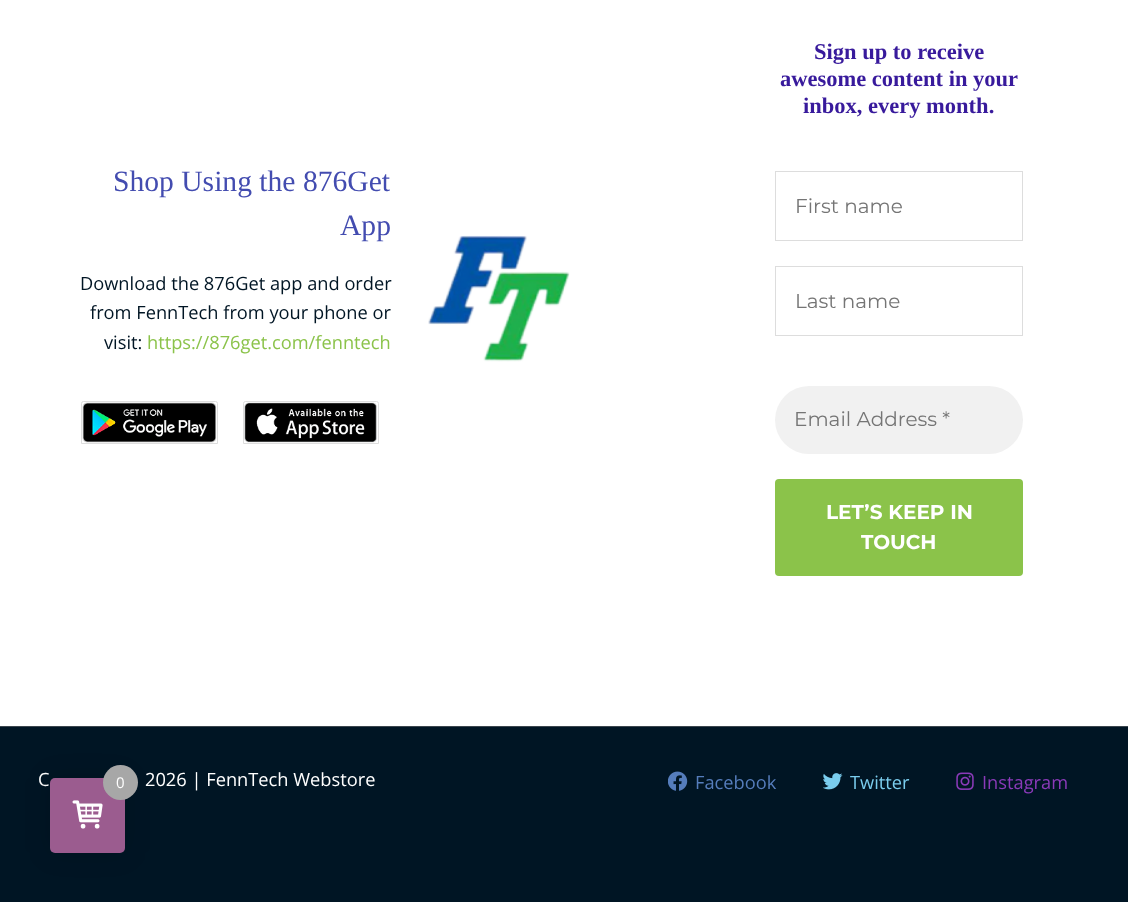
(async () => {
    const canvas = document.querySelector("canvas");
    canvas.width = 1128;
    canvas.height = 902;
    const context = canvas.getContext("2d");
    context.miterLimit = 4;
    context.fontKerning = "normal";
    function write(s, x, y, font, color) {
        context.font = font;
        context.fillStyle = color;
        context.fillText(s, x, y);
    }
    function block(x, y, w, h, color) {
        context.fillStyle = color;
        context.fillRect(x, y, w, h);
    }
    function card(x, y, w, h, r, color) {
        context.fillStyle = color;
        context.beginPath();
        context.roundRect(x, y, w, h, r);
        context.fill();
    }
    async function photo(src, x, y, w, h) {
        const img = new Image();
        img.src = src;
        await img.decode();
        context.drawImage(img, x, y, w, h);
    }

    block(0, 0, 1128, 902, "rgb(255, 255, 255)");
    write("Shop Using the 876Get", 113, 191, "29.6px Liberation Serif", "rgb(67, 76, 176)");
    write("App", 340, 235, "29.6px Liberation Serif", "rgb(67, 76, 176)");
    write("Download the 876Get app and order", 80, 290, "18.25px Open Sans", "rgb(0, 21, 36)");
    write("from FennTech from your phone or", 90, 319, "18.25px Open Sans", "rgb(0, 21, 36)");
    write("visit:", 104, 349, "18.25px Open Sans", "rgb(0, 21, 36)");
    write("https://876get.com/fenntech", 147, 349, "18.25px Open Sans", "rgb(139, 195, 74)");
    context.beginPath();
    context.roundRect(81.5, 401.5, 136, 42, [2, 2, 0, 0]);
    context.strokeStyle = "rgb(221, 221, 221)";
    context.stroke();
    await photo("media/1.png", 82, 402, 135, 41);
    context.beginPath();
    context.roundRect(243.5, 401.5, 135, 42, [2, 2, 0, 0]);
    context.stroke();
    await photo("media/2.png", 244, 402, 133, 41);
    await photo("media/3.png", 428, 235, 142, 127);
    write("Sign up to receive", 814, 59, "bold 22.5px Liberation Serif", "rgb(56, 26, 156)");
    write("awesome content in your", 780, 86, "bold 22.5px Liberation Serif", "rgb(56, 26, 156)");
    write("inbox, every month.", 803, 113, "bold 22.5px Liberation Serif", "rgb(56, 26, 156)");
    context.strokeRect(775.5, 171.5, 247, 69);
    write("First name", 795, 213, "20px Montserrat", "rgb(117, 117, 117)");
    context.strokeRect(775.5, 266.5, 247, 69);
    write("Last name", 795, 308, "20px Montserrat", "rgb(117, 117, 117)");
    card(775, 386, 248, 68, 34, "rgb(241, 241, 241)");
    write("Email Address *", 794, 426, "20px Montserrat", "rgb(117, 117, 117)");
    card(775, 479, 248, 97, 4, "rgb(139, 195, 74)");
    write("LET’S KEEP IN", 826, 519, "bold 20px Montserrat", "rgb(255, 255, 255)");
    write("TOUCH", 861, 549, "bold 20px Montserrat", "rgb(255, 255, 255)");
    block(0, 727, 1128, 175, "rgb(0, 21, 36)");
    block(0, 726, 1128, 1, "rgb(59, 70, 78)");
    write("C", 38, 786, "18.25px Open Sans", "rgb(255, 255, 255)");
    write("2026 | FennTech Webstore", 145, 786, "18.25px Open Sans", "rgb(255, 255, 255)");
    await photo("media/4.png", 668, 771, 20, 20);
    write("Facebook", 695, 789, "18.25px Open Sans", "rgb(85, 125, 188)");
    await photo("media/5.png", 823, 773, 20, 17);
    write("Twitter", 850, 789, "18.25px Open Sans", "rgb(122, 205, 238)");
    await photo("media/6.png", 956, 772, 18, 18);
    write("Instagram", 982, 789, "18.25px Open Sans", "rgb(138, 58, 185)");
    context.fillStyle = "rgba(0, 0, 0, 0.15)";
    context.filter = "blur(12.5px)";
    context.beginPath();
    context.roundRect(50, 778, 75, 75, 5);
    context.fill();
    context.filter = "none";
    card(50, 778, 75, 75, 5, "rgb(155, 92, 143)");
    context.fillStyle = "rgb(167, 167, 167)";
    context.beginPath();
    context.arc(120.5, 782.5, 17.5, 0, Math.PI * 2);
    context.fill();
    write("0", 116, 788, "15px Open Sans", "rgb(255, 255, 255)");
    await photo("media/7.png", 72, 800, 31, 29);
})();
